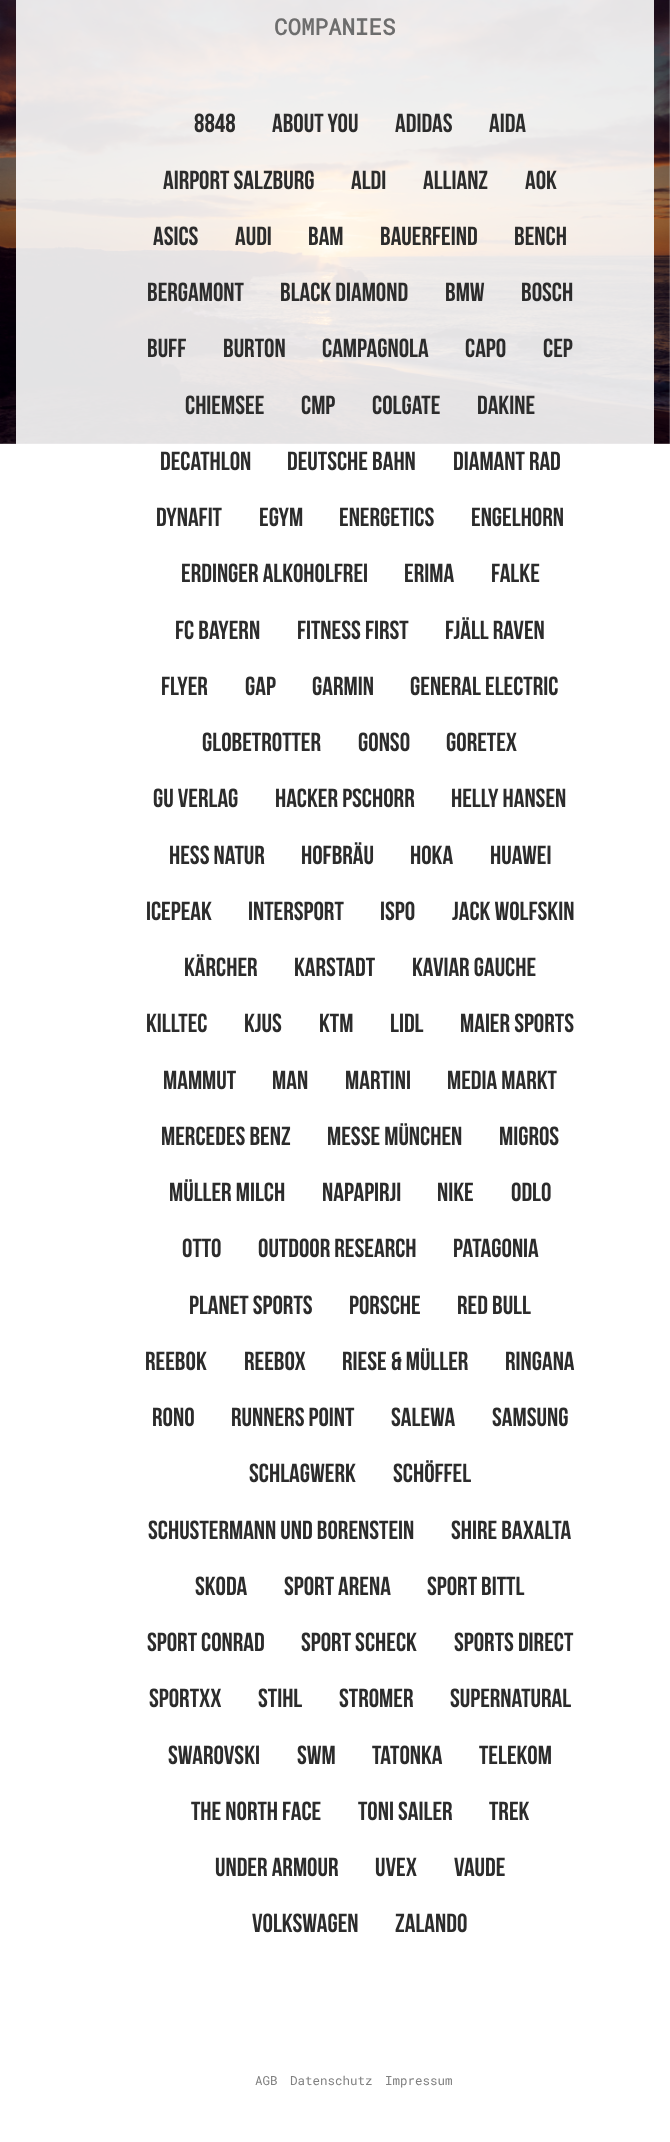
(async () => {
    const canvas = document.querySelector("canvas");
    canvas.width = 670;
    canvas.height = 2142;
    const context = canvas.getContext("2d");
    context.miterLimit = 4;
    context.fontKerning = "normal";
    function write(s, x, y, font, color) {
        context.font = font;
        context.fillStyle = color;
        context.fillText(s, x, y);
    }
    function block(x, y, w, h, color) {
        context.fillStyle = color;
        context.fillRect(x, y, w, h);
    }
    async function photo(src, x, y, w, h) {
        const img = new Image();
        img.src = src;
        await img.decode();
        context.drawImage(img, x, y, w, h);
    }

    block(0, 0, 670, 2142, "rgb(255, 255, 255)");
    await photo("media/1.png", 0, 0, 670, 444);
    write("COMPANIES", 274, 35, "bold 22.5px Roboto Mono", "rgb(109, 109, 109)");
    write("8848", 194, 132, "26.25px Bebas Neue", "rgb(44, 44, 44)");
    write("About You", 272, 132, "26.25px Bebas Neue", "rgb(44, 44, 44)");
    write("Adidas", 395, 132, "26.25px Bebas Neue", "rgb(44, 44, 44)");
    write("AIDA", 489, 132, "26.25px Bebas Neue", "rgb(44, 44, 44)");
    write("Airport Salzburg", 163, 189, "26.25px Bebas Neue", "rgb(44, 44, 44)");
    write("Aldi", 351, 189, "26.25px Bebas Neue", "rgb(44, 44, 44)");
    write("Allianz", 423, 189, "26.25px Bebas Neue", "rgb(44, 44, 44)");
    write("AOK", 525, 189, "26.25px Bebas Neue", "rgb(44, 44, 44)");
    write("Asics", 153, 245, "26.25px Bebas Neue", "rgb(44, 44, 44)");
    write("Audi", 235, 245, "26.25px Bebas Neue", "rgb(44, 44, 44)");
    write("BAM", 308, 245, "26.25px Bebas Neue", "rgb(44, 44, 44)");
    write("Bauerfeind", 380, 245, "26.25px Bebas Neue", "rgb(44, 44, 44)");
    write("Bench", 514, 245, "26.25px Bebas Neue", "rgb(44, 44, 44)");
    write("Bergamont", 147, 301, "26.25px Bebas Neue", "rgb(44, 44, 44)");
    write("Black Diamond", 280, 301, "26.25px Bebas Neue", "rgb(44, 44, 44)");
    write("BMW", 445, 301, "26.25px Bebas Neue", "rgb(44, 44, 44)");
    write("Bosch", 521, 301, "26.25px Bebas Neue", "rgb(44, 44, 44)");
    write("Buff", 147, 357, "26.25px Bebas Neue", "rgb(44, 44, 44)");
    write("Burton", 223, 357, "26.25px Bebas Neue", "rgb(44, 44, 44)");
    write("Campagnola", 322, 357, "26.25px Bebas Neue", "rgb(44, 44, 44)");
    write("Capo", 465, 357, "26.25px Bebas Neue", "rgb(44, 44, 44)");
    write("CEP", 543, 357, "26.25px Bebas Neue", "rgb(44, 44, 44)");
    write("Chiemsee", 185, 414, "26.25px Bebas Neue", "rgb(44, 44, 44)");
    write("CMP", 301, 414, "26.25px Bebas Neue", "rgb(44, 44, 44)");
    write("Colgate", 372, 414, "26.25px Bebas Neue", "rgb(44, 44, 44)");
    write("DaKine", 477, 414, "26.25px Bebas Neue", "rgb(44, 44, 44)");
    write("Decathlon", 160, 470, "26.25px Bebas Neue", "rgb(44, 44, 44)");
    write("Deutsche Bahn", 287, 470, "26.25px Bebas Neue", "rgb(44, 44, 44)");
    write("Diamant Rad", 453, 470, "26.25px Bebas Neue", "rgb(44, 44, 44)");
    write("Dynafit", 156, 526, "26.25px Bebas Neue", "rgb(44, 44, 44)");
    write("EGym", 259, 526, "26.25px Bebas Neue", "rgb(44, 44, 44)");
    write("Energetics", 339, 526, "26.25px Bebas Neue", "rgb(44, 44, 44)");
    write("Engelhorn", 471, 526, "26.25px Bebas Neue", "rgb(44, 44, 44)");
    write("Erdinger Alkoholfrei", 181, 582, "26.25px Bebas Neue", "rgb(44, 44, 44)");
    write("Erima", 404, 582, "26.25px Bebas Neue", "rgb(44, 44, 44)");
    write("Falke", 491, 582, "26.25px Bebas Neue", "rgb(44, 44, 44)");
    write("FC Bayern", 175, 639, "26.25px Bebas Neue", "rgb(44, 44, 44)");
    write("Fitness First", 297, 639, "26.25px Bebas Neue", "rgb(44, 44, 44)");
    write("Fjäll Raven", 445, 639, "26.25px Bebas Neue", "rgb(44, 44, 44)");
    write("Flyer", 161, 695, "26.25px Bebas Neue", "rgb(44, 44, 44)");
    write("GAP", 245, 695, "26.25px Bebas Neue", "rgb(44, 44, 44)");
    write("Garmin", 312, 695, "26.25px Bebas Neue", "rgb(44, 44, 44)");
    write("General Electric", 410, 695, "26.25px Bebas Neue", "rgb(44, 44, 44)");
    write("Globetrotter", 202, 751, "26.25px Bebas Neue", "rgb(44, 44, 44)");
    write("Gonso", 358, 751, "26.25px Bebas Neue", "rgb(44, 44, 44)");
    write("GoreTex", 446, 751, "26.25px Bebas Neue", "rgb(44, 44, 44)");
    write("GU Verlag", 153, 807, "26.25px Bebas Neue", "rgb(44, 44, 44)");
    write("Hacker Pschorr", 275, 807, "26.25px Bebas Neue", "rgb(44, 44, 44)");
    write("Helly Hansen", 451, 807, "26.25px Bebas Neue", "rgb(44, 44, 44)");
    write("Hess Natur", 169, 864, "26.25px Bebas Neue", "rgb(44, 44, 44)");
    write("Hofbräu", 301, 864, "26.25px Bebas Neue", "rgb(44, 44, 44)");
    write("Hoka", 410, 864, "26.25px Bebas Neue", "rgb(44, 44, 44)");
    write("Huawei", 490, 864, "26.25px Bebas Neue", "rgb(44, 44, 44)");
    write("Icepeak", 146, 920, "26.25px Bebas Neue", "rgb(44, 44, 44)");
    write("Intersport", 248, 920, "26.25px Bebas Neue", "rgb(44, 44, 44)");
    write("ISPO", 380, 920, "26.25px Bebas Neue", "rgb(44, 44, 44)");
    write("Jack Wolfskin", 452, 920, "26.25px Bebas Neue", "rgb(44, 44, 44)");
    write("Kärcher", 184, 976, "26.25px Bebas Neue", "rgb(44, 44, 44)");
    write("Karstadt", 294, 976, "26.25px Bebas Neue", "rgb(44, 44, 44)");
    write("Kaviar Gauche", 412, 976, "26.25px Bebas Neue", "rgb(44, 44, 44)");
    write("Killtec", 146, 1032, "26.25px Bebas Neue", "rgb(44, 44, 44)");
    write("Kjus", 244, 1032, "26.25px Bebas Neue", "rgb(44, 44, 44)");
    write("KTM", 319, 1032, "26.25px Bebas Neue", "rgb(44, 44, 44)");
    write("Lidl", 390, 1032, "26.25px Bebas Neue", "rgb(44, 44, 44)");
    write("Maier Sports", 460, 1032, "26.25px Bebas Neue", "rgb(44, 44, 44)");
    write("Mammut", 163, 1089, "26.25px Bebas Neue", "rgb(44, 44, 44)");
    write("MAN", 272, 1089, "26.25px Bebas Neue", "rgb(44, 44, 44)");
    write("Martini", 345, 1089, "26.25px Bebas Neue", "rgb(44, 44, 44)");
    write("Media Markt", 447, 1089, "26.25px Bebas Neue", "rgb(44, 44, 44)");
    write("Mercedes Benz", 161, 1145, "26.25px Bebas Neue", "rgb(44, 44, 44)");
    write("Messe München", 327, 1145, "26.25px Bebas Neue", "rgb(44, 44, 44)");
    write("Migros", 499, 1145, "26.25px Bebas Neue", "rgb(44, 44, 44)");
    write("Müller Milch", 169, 1201, "26.25px Bebas Neue", "rgb(44, 44, 44)");
    write("Napapirji", 322, 1201, "26.25px Bebas Neue", "rgb(44, 44, 44)");
    write("Nike", 437, 1201, "26.25px Bebas Neue", "rgb(44, 44, 44)");
    write("Odlo", 511, 1201, "26.25px Bebas Neue", "rgb(44, 44, 44)");
    write("Otto", 182, 1257, "26.25px Bebas Neue", "rgb(44, 44, 44)");
    write("Outdoor Research", 258, 1257, "26.25px Bebas Neue", "rgb(44, 44, 44)");
    write("Patagonia", 453, 1257, "26.25px Bebas Neue", "rgb(44, 44, 44)");
    write("Planet Sports", 189, 1314, "26.25px Bebas Neue", "rgb(44, 44, 44)");
    write("Porsche", 349, 1314, "26.25px Bebas Neue", "rgb(44, 44, 44)");
    write("Red Bull", 457, 1314, "26.25px Bebas Neue", "rgb(44, 44, 44)");
    write("Reebok", 145, 1370, "26.25px Bebas Neue", "rgb(44, 44, 44)");
    write("Reebox", 244, 1370, "26.25px Bebas Neue", "rgb(44, 44, 44)");
    write("Riese & Müller", 342, 1370, "26.25px Bebas Neue", "rgb(44, 44, 44)");
    write("Ringana", 505, 1370, "26.25px Bebas Neue", "rgb(44, 44, 44)");
    write("Rono", 152, 1426, "26.25px Bebas Neue", "rgb(44, 44, 44)");
    write("Runners Point", 231, 1426, "26.25px Bebas Neue", "rgb(44, 44, 44)");
    write("Salewa", 391, 1426, "26.25px Bebas Neue", "rgb(44, 44, 44)");
    write("Samsung", 492, 1426, "26.25px Bebas Neue", "rgb(44, 44, 44)");
    write("Schlagwerk", 249, 1482, "26.25px Bebas Neue", "rgb(44, 44, 44)");
    write("Schöffel", 393, 1482, "26.25px Bebas Neue", "rgb(44, 44, 44)");
    write("Schustermann und Borenstein", 148, 1539, "26.25px Bebas Neue", "rgb(44, 44, 44)");
    write("Shire Baxalta", 451, 1539, "26.25px Bebas Neue", "rgb(44, 44, 44)");
    write("Skoda", 195, 1595, "26.25px Bebas Neue", "rgb(44, 44, 44)");
    write("Sport Arena", 284, 1595, "26.25px Bebas Neue", "rgb(44, 44, 44)");
    write("Sport Bittl", 427, 1595, "26.25px Bebas Neue", "rgb(44, 44, 44)");
    write("Sport Conrad", 147, 1651, "26.25px Bebas Neue", "rgb(44, 44, 44)");
    write("Sport Scheck", 301, 1651, "26.25px Bebas Neue", "rgb(44, 44, 44)");
    write("Sports Direct", 454, 1651, "26.25px Bebas Neue", "rgb(44, 44, 44)");
    write("SportXX", 149, 1707, "26.25px Bebas Neue", "rgb(44, 44, 44)");
    write("Stihl", 258, 1707, "26.25px Bebas Neue", "rgb(44, 44, 44)");
    write("Stromer", 339, 1707, "26.25px Bebas Neue", "rgb(44, 44, 44)");
    write("Supernatural", 450, 1707, "26.25px Bebas Neue", "rgb(44, 44, 44)");
    write("Swarovski", 168, 1764, "26.25px Bebas Neue", "rgb(44, 44, 44)");
    write("SWM", 297, 1764, "26.25px Bebas Neue", "rgb(44, 44, 44)");
    write("Tatonka", 372, 1764, "26.25px Bebas Neue", "rgb(44, 44, 44)");
    write("Telekom", 479, 1764, "26.25px Bebas Neue", "rgb(44, 44, 44)");
    write("The North Face", 191, 1820, "26.25px Bebas Neue", "rgb(44, 44, 44)");
    write("Toni Sailer", 358, 1820, "26.25px Bebas Neue", "rgb(44, 44, 44)");
    write("Trek", 489, 1820, "26.25px Bebas Neue", "rgb(44, 44, 44)");
    write("Under Armour", 215, 1876, "26.25px Bebas Neue", "rgb(44, 44, 44)");
    write("Uvex", 375, 1876, "26.25px Bebas Neue", "rgb(44, 44, 44)");
    write("Vaude", 454, 1876, "26.25px Bebas Neue", "rgb(44, 44, 44)");
    write("Volkswagen", 252, 1932, "26.25px Bebas Neue", "rgb(44, 44, 44)");
    write("Zalando", 395, 1932, "26.25px Bebas Neue", "rgb(44, 44, 44)");
    write("AGB", 255, 2085, "12.5px Roboto Mono", "rgb(128, 128, 128)");
    write("Datenschutz", 290, 2085, "12.5px Roboto Mono", "rgb(128, 128, 128)");
    write("Impressum", 385, 2085, "12.5px Roboto Mono", "rgb(128, 128, 128)");
})();
